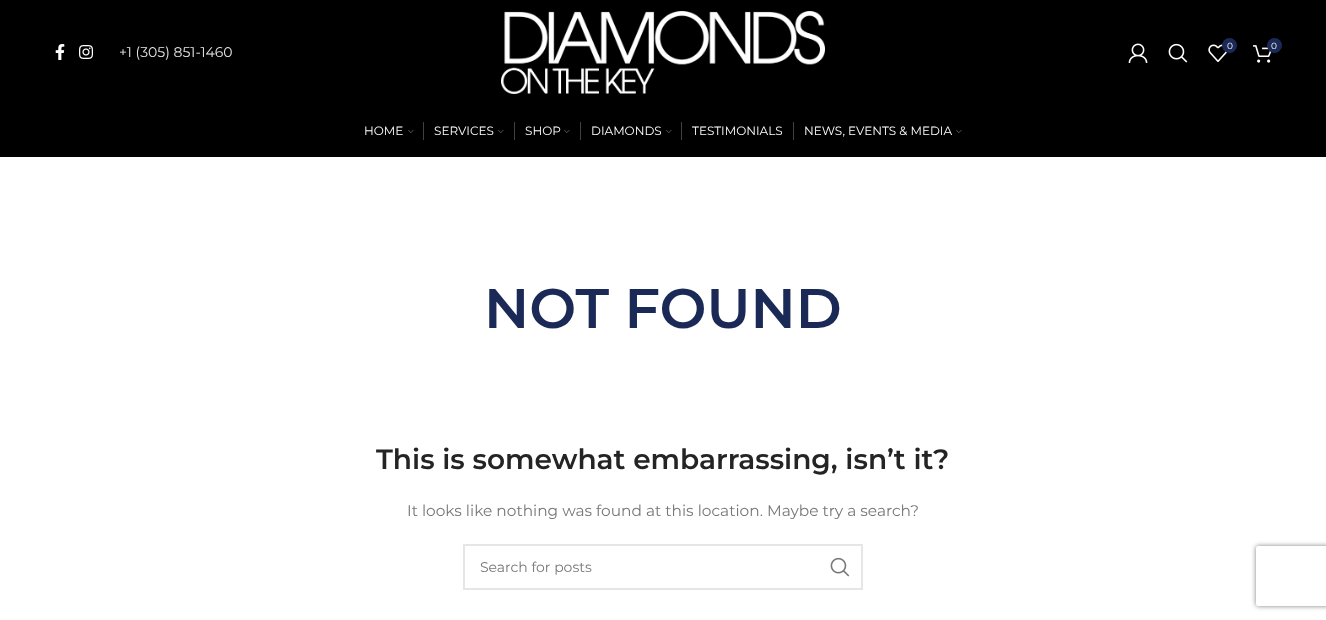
(async () => {
    const canvas = document.querySelector("canvas");
    canvas.width = 1326;
    canvas.height = 620;
    const context = canvas.getContext("2d");
    context.miterLimit = 4;
    context.fontKerning = "normal";
    function write(s, x, y, font, color) {
        context.font = font;
        context.fillStyle = color;
        context.fillText(s, x, y);
    }
    function block(x, y, w, h, color) {
        context.fillStyle = color;
        context.fillRect(x, y, w, h);
    }
    async function photo(src, x, y, w, h) {
        const img = new Image();
        img.src = src;
        await img.decode();
        context.drawImage(img, x, y, w, h);
    }

    block(0, 0, 1326, 620, "rgb(255, 255, 255)");
    block(0, 0, 1326, 157, "rgb(0, 0, 0)");
    await photo("media/1.png", 55, 44, 10, 16);
    await photo("media/2.png", 79, 45, 14, 14);
    write("+1 (305) 851-1460", 119, 57, "14px Montserrat", "rgb(230, 230, 230)");
    await photo("media/3.png", 501, 11, 324, 83);
    await photo("media/4.png", 1128, 43, 20, 20);
    await photo("media/5.png", 1168, 43, 20, 20);
    await photo("media/6.png", 1208, 44, 20, 18);
    context.fillStyle = "rgb(27, 41, 86)";
    context.beginPath();
    context.arc(1229.5, 45.5, 7.5, 0, Math.PI * 2);
    context.fill();
    write("0", 1227, 49, "9px Montserrat", "rgb(255, 255, 255)");
    await photo("media/7.png", 1253, 45, 19, 18);
    context.fillStyle = "rgb(27, 41, 86)";
    context.beginPath();
    context.arc(1274.5, 45.5, 7.5, 0, Math.PI * 2);
    context.fill();
    write("0", 1271, 49, "9px Montserrat", "rgb(255, 255, 255)");
    write("HOME", 364, 135, "12px Montserrat", "rgb(255, 255, 255)");
    await photo("media/8.png", 408, 130, 6, 3);
    block(423, 122, 1, 18, "rgb(64, 64, 64)");
    write("SERVICES", 434, 135, "12px Montserrat", "rgb(255, 255, 255)");
    await photo("media/8.png", 498, 130, 6, 3);
    block(514, 122, 1, 18, "rgb(64, 64, 64)");
    write("SHOP", 525, 135, "12px Montserrat", "rgb(255, 255, 255)");
    await photo("media/8.png", 564, 130, 6, 3);
    block(580, 122, 1, 18, "rgb(64, 64, 64)");
    write("DIAMONDS", 591, 135, "12px Montserrat", "rgb(255, 255, 255)");
    await photo("media/8.png", 666, 130, 6, 3);
    block(681, 122, 1, 18, "rgb(64, 64, 64)");
    write("TESTIMONIALS", 692, 135, "12px Montserrat", "rgb(255, 255, 255)");
    block(793, 122, 1, 18, "rgb(64, 64, 64)");
    write("NEWS, EVENTS & MEDIA", 804, 135, "12px Montserrat", "rgb(255, 255, 255)");
    await photo("media/8.png", 956, 130, 6, 3);
    write("NOT FOUND", 484, 328, "600 55.75px Montserrat", "rgb(27, 41, 86)");
    write("This is somewhat embarrassing, isn’t it?", 376, 469, "600 28px Montserrat", "rgb(36, 36, 36)");
    write("It looks like nothing was found at this location. Maybe try a search?", 407, 516, "15.4px Montserrat", "rgb(119, 119, 119)");
    context.strokeStyle = "rgb(230, 230, 230)";
    context.lineWidth = 2;
    context.strokeRect(464, 545, 398, 44);
    write("Search for posts", 480, 572, "14px Montserrat", "rgb(119, 119, 119)");
    await photo("media/9.png", 830, 557, 20, 20);
    context.save();
    context.beginPath();
    context.moveTo(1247, 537);
    context.lineTo(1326, 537);
    context.lineTo(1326, 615);
    context.lineTo(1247, 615);
    context.closePath();
    context.moveTo(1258, 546);
    context.lineTo(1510, 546);
    context.bezierCurveTo(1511, 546, 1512, 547, 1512, 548);
    context.lineTo(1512, 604);
    context.bezierCurveTo(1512, 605, 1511, 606, 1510, 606);
    context.lineTo(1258, 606);
    context.bezierCurveTo(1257, 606, 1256, 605, 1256, 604);
    context.lineTo(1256, 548);
    context.bezierCurveTo(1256, 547, 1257, 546, 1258, 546);
    context.closePath();
    context.clip("evenodd");
    context.fillStyle = "rgb(128, 128, 128)";
    context.filter = "blur(2.5px)";
    context.beginPath();
    context.roundRect(1256, 546, 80, 60, 2);
    context.fill();
    context.filter = "none";
    context.restore();
})();
